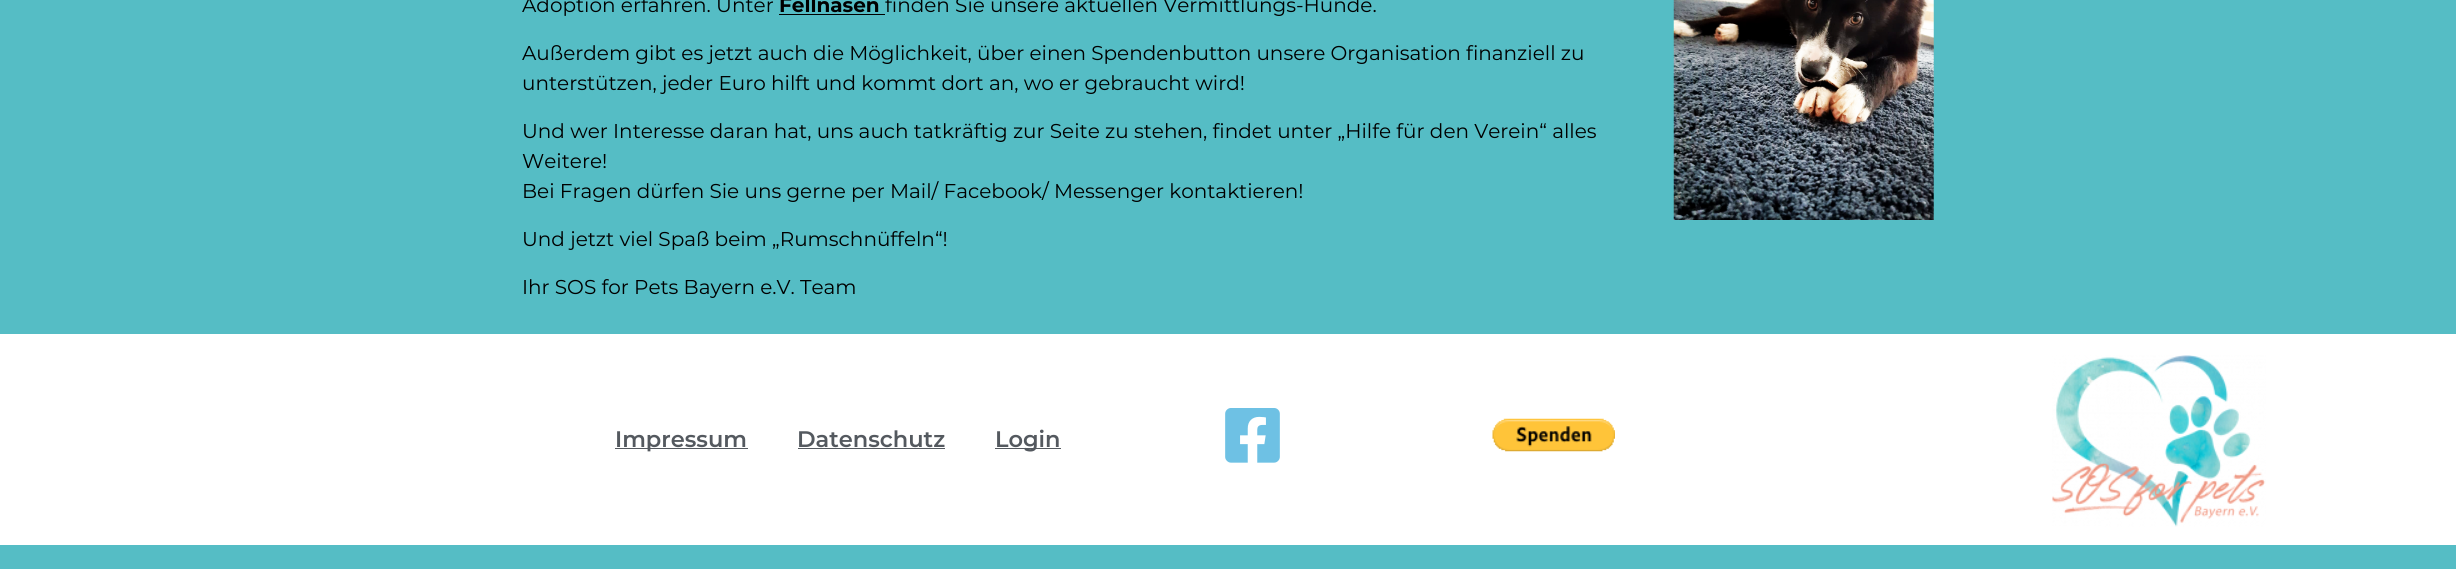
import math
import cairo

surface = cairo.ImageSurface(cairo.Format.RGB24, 2456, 569)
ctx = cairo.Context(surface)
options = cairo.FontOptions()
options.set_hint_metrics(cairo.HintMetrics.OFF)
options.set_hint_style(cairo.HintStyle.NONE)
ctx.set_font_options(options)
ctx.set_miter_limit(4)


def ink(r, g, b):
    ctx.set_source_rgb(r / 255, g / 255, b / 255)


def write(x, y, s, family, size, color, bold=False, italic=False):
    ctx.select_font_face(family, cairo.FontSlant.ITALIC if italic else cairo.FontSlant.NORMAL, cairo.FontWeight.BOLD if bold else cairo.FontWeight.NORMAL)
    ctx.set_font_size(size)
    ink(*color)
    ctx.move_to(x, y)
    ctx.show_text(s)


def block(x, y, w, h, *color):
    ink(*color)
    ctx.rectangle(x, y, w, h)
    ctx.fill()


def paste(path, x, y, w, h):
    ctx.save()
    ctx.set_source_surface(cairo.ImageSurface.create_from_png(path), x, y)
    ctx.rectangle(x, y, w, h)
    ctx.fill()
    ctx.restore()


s1 = dict(family="Montserrat", size=20, color=(0, 0, 0))
s2 = dict(family="Montserrat", size=20, color=(0, 0, 0), bold=True)
s3 = dict(family="Montserrat SemiBold", size=22.5, color=(84, 89, 95))

ink(85, 189, 197)
ctx.paint()
write(522, 12, "Adoption erfahren. Unter", **s1)
write(779, 12, "Fellnasen", **s2)
block(779, 14, 106, 1, 0, 0, 0)
write(885, 12, "finden Sie unsere aktuellen Vermittlungs-Hunde.", **s1)
write(522, 60, "Außerdem gibt es jetzt auch die Möglichkeit, über einen Spendenbutton unsere Organisation finanziell zu", **s1)
write(522, 90, "unterstützen, jeder Euro hilft und kommt dort an, wo er gebraucht wird!", **s1)
write(522, 138, "Und wer Interesse daran hat, uns auch tatkräftig zur Seite zu stehen, findet unter „Hilfe für den Verein“ alles", **s1)
write(522, 168, "Weitere!", **s1)
write(522, 198, "Bei Fragen dürfen Sie uns gerne per Mail/ Facebook/ Messenger kontaktieren!", **s1)
write(522, 246, "Und jetzt viel Spaß beim „Rumschnüffeln“!", **s1)
write(522, 294, "Ihr SOS for Pets Bayern e.V. Team", **s1)
paste("pic1.png", 1673, 0, 261, 220)
block(0, 334, 2456, 211, 255, 255, 255)
block(615, 448, 133, 1, 84, 89, 95)
write(615, 447, "Impressum", **s3)
write(797, 447, "Datenschutz", **s3)
block(798, 448, 147, 1, 84, 89, 95)
block(995, 448, 66, 1, 84, 89, 95)
write(995, 447, "Login", **s3)
paste("pic2.png", 1225, 408, 55, 55)
paste("pic3.png", 1492, 418, 123, 34)
paste("pic4.png", 2052, 355, 214, 172)
surface.write_to_png("screenshot.png")
